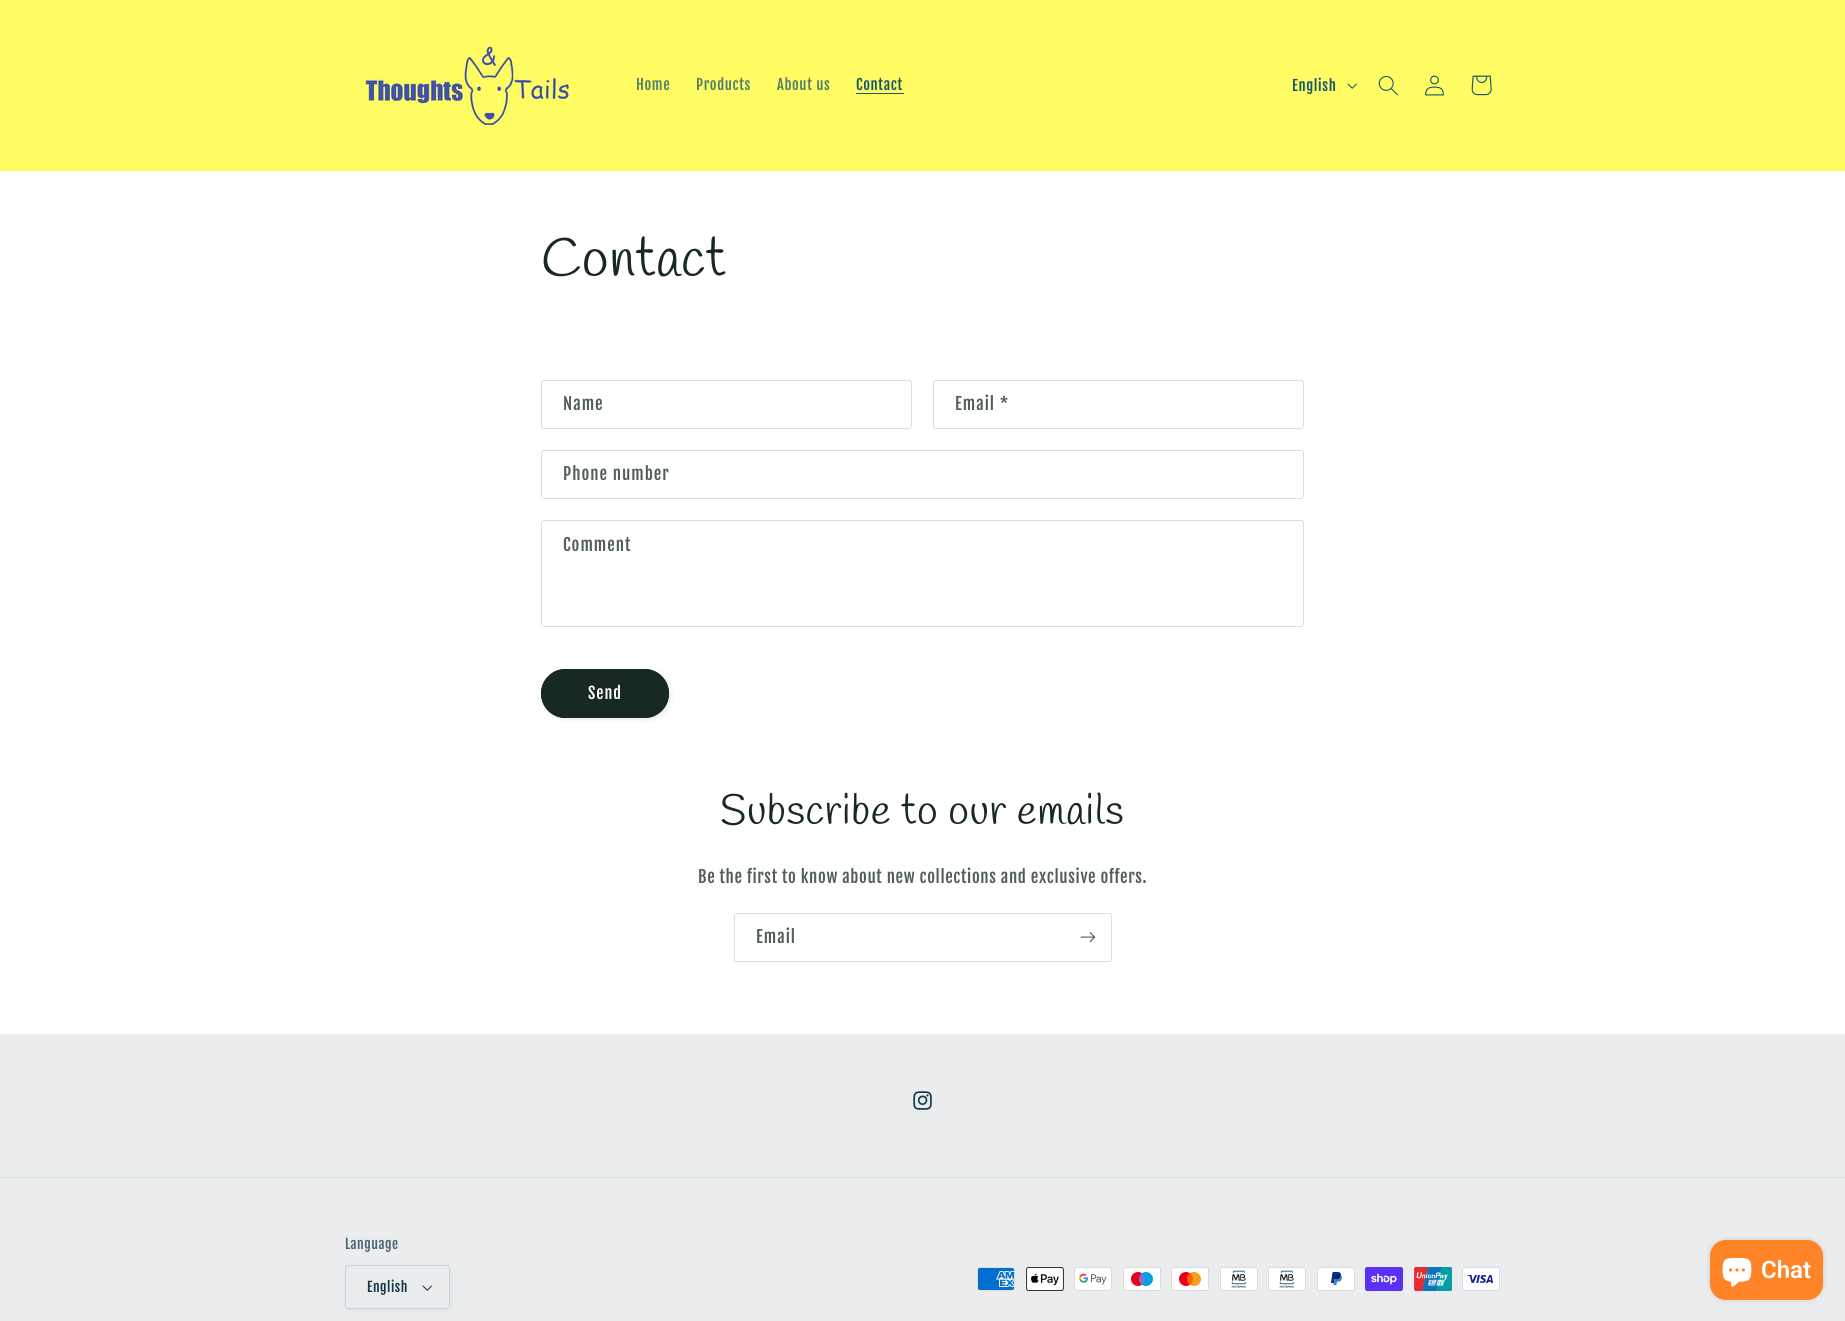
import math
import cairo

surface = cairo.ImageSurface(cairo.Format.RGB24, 1845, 1321)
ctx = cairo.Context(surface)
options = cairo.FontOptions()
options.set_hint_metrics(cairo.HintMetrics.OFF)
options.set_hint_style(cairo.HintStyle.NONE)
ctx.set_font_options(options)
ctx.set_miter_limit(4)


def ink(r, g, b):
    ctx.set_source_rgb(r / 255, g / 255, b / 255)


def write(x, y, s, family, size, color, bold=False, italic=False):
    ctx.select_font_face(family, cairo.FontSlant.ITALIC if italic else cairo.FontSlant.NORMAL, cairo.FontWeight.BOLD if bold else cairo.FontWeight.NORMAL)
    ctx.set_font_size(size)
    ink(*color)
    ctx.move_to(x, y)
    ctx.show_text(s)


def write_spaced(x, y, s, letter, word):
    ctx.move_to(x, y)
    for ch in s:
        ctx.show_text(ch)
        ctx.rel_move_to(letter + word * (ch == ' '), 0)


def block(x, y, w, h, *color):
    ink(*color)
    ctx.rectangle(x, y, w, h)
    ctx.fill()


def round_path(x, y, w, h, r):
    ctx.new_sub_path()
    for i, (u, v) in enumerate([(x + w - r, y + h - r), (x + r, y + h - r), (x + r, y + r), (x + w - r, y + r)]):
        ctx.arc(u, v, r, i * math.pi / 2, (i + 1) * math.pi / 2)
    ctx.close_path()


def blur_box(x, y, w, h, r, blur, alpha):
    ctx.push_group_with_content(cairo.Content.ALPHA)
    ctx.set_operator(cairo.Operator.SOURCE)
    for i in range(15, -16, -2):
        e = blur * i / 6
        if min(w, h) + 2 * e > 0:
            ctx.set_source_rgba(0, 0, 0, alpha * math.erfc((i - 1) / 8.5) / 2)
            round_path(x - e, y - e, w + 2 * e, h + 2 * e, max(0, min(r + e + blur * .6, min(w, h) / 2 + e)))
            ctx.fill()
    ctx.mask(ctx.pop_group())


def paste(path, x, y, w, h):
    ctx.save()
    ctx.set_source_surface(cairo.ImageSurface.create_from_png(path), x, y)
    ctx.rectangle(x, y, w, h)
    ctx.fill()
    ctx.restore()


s1 = dict(family="Roboto SemiBold", size=24, color=(252, 252, 252))

ink(255, 255, 255)
ctx.paint()
block(0, 0, 1845, 171, 255, 253, 99)
paste("pic1.png", 361, 44, 215, 86)
ctx.select_font_face("Fjalla One")
ctx.set_font_size(14.5)
ink(82, 128, 106)
write_spaced(636, 90, "Home", 0.63, 0)
write_spaced(696, 90, "Products", 0.63, 0)
write_spaced(777, 90, "About us", 0.63, 0)
ink(24, 86, 108)
write_spaced(856, 90, "Contact", 0.63, 0)
block(856, 93, 48, 1, 24, 86, 108)
write_spaced(1292, 91, "English", 0.63, 0)
paste("pic2.png", 1347, 83, 10, 6)
paste("pic3.png", 1378, 75, 20, 21)
paste("pic4.png", 1425, 75, 19, 21)
paste("pic5.png", 1471, 75, 21, 21)
ctx.select_font_face("Handlee")
ctx.set_font_size(54.5)
ink(24, 40, 37)
write_spaced(541, 276, "Contact", 0.63, 0)
round_path(541.5, 380.5, 370, 48, 2.5)
ctx.set_source_rgba(0.094, 0.157, 0.145, 0.15)
ctx.set_line_width(1)
ctx.stroke()
ctx.select_font_face("Fjalla One")
ctx.set_font_size(16.8)
ink(82, 94, 92)
write_spaced(563, 410, "Name", 1, 0)
round_path(933.5, 380.5, 370, 48, 2.5)
ctx.set_source_rgba(0.094, 0.157, 0.145, 0.15)
ctx.stroke()
ink(82, 94, 92)
write_spaced(955, 410, "Email *", 1, 0)
round_path(541.5, 450.5, 762, 48, 2.5)
ctx.set_source_rgba(0.094, 0.157, 0.145, 0.15)
ctx.stroke()
ink(82, 94, 92)
write_spaced(563, 480, "Phone number", 1, 0)
round_path(541.5, 520.5, 762, 106, 2.5)
ctx.set_source_rgba(0.094, 0.157, 0.145, 0.15)
ctx.stroke()
ink(82, 94, 92)
write_spaced(563, 551, "Comment", 1, 0)
ink(24, 40, 37)
blur_box(543, 671, 128, 49, 24.5, 2.5, 0.1)
ink(24, 40, 37)
round_path(541, 669, 128, 49, 24.5)
ctx.fill()
round_path(541.5, 669.5, 127, 48, 24)
ctx.stroke()
ctx.set_font_size(16)
ink(252, 252, 252)
write_spaced(588, 699, "Send", 1, 0)
ctx.select_font_face("Handlee")
ctx.set_font_size(42)
ink(24, 40, 37)
write_spaced(720, 824, "Subscribe to our emails", 0.63, 0)
ctx.select_font_face("Fjalla One")
ctx.set_font_size(16.8)
ink(82, 94, 92)
write_spaced(698, 883, "Be the first to know about new collections and exclusive offers.", 0.63, 0)
round_path(734.5, 913.5, 377, 48, 2.5)
ctx.set_source_rgba(0.094, 0.157, 0.145, 0.15)
ctx.stroke()
ink(82, 94, 92)
write_spaced(756, 943, "Email", 1, 0)
paste("pic6.png", 1080, 932, 15, 11)
block(0, 1034, 1845, 287, 235, 236, 237)
paste("pic7.png", 913, 1091, 19, 19)
block(0, 1177, 1845, 1, 217, 222, 224)
ctx.set_font_size(13.5)
ink(71, 102, 113)
write_spaced(345, 1249, "Language", 0.5, 0)
ink(16, 57, 72)
blur_box(347, 1267, 105, 44, 3, 2.5, 0.05)
ink(235, 236, 237)
round_path(345, 1265, 105, 44, 3)
ctx.fill()
paste("pic8.png", 422, 1285, 10, 6)
round_path(345.5, 1265.5, 104, 43, 2.5)
ink(202, 209, 212)
ctx.stroke()
ink(16, 57, 72)
write_spaced(367, 1292, "English", 0.5, 0)
paste("pic9.png", 977, 1267, 38, 24)
paste("pic10.png", 1026, 1267, 38, 24)
paste("pic11.png", 1074, 1267, 38, 24)
paste("pic12.png", 1123, 1267, 38, 24)
paste("pic13.png", 1171, 1267, 38, 24)
paste("pic14.png", 1220, 1267, 38, 24)
paste("pic14.png", 1268, 1267, 38, 24)
paste("pic15.png", 1317, 1267, 38, 24)
paste("pic16.png", 1365, 1267, 38, 24)
paste("pic17.png", 1414, 1267, 38, 24)
paste("pic18.png", 1462, 1267, 38, 24)
ink(0, 0, 0)
blur_box(1710, 1240, 113, 60, 16, 2.5, 0.15)
ink(255, 132, 39)
round_path(1710, 1240, 113, 60, 16)
ctx.fill()
paste("pic19.png", 1722, 1258, 30, 29)
write(1761, 1278, "Chat", **s1)
surface.write_to_png("screenshot.png")
